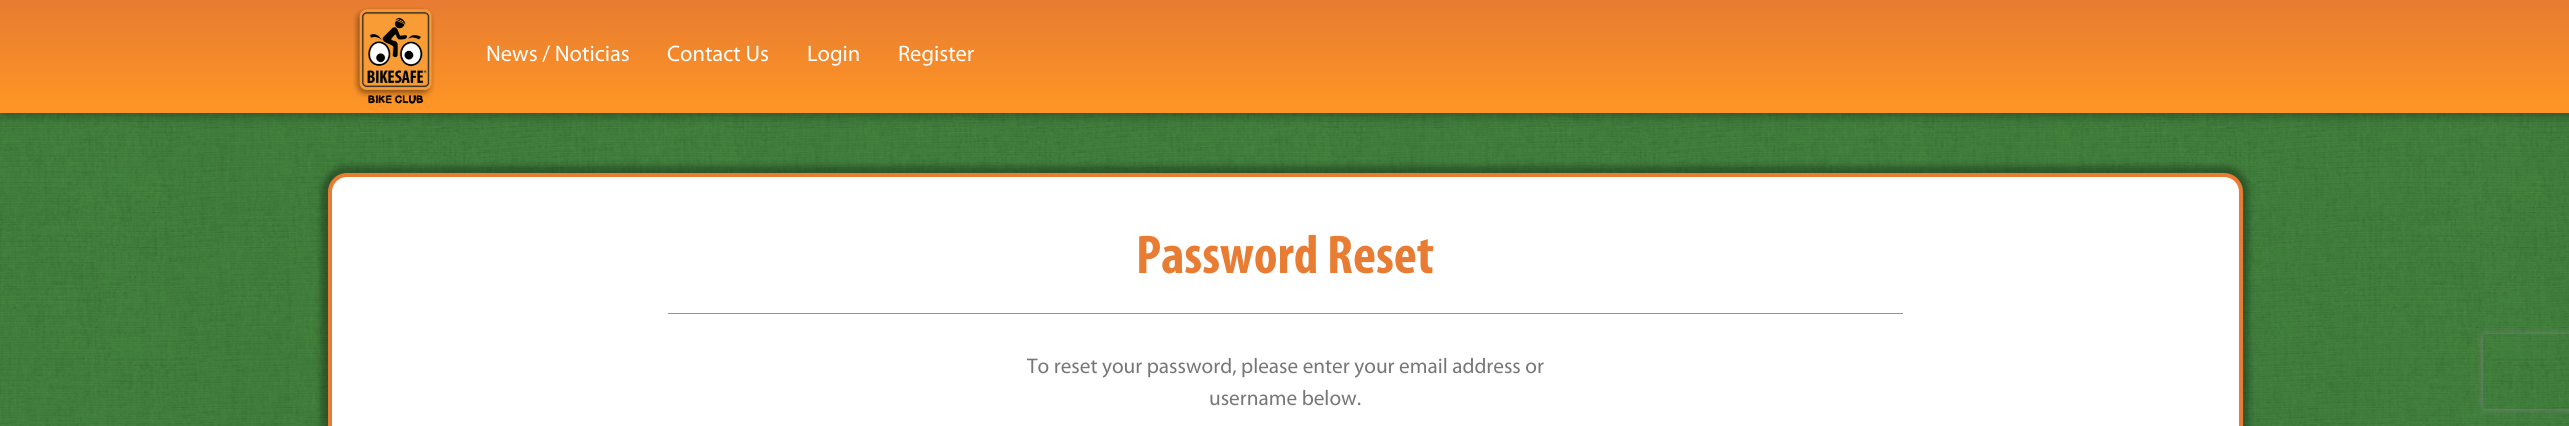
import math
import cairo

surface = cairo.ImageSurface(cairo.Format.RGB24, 2569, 426)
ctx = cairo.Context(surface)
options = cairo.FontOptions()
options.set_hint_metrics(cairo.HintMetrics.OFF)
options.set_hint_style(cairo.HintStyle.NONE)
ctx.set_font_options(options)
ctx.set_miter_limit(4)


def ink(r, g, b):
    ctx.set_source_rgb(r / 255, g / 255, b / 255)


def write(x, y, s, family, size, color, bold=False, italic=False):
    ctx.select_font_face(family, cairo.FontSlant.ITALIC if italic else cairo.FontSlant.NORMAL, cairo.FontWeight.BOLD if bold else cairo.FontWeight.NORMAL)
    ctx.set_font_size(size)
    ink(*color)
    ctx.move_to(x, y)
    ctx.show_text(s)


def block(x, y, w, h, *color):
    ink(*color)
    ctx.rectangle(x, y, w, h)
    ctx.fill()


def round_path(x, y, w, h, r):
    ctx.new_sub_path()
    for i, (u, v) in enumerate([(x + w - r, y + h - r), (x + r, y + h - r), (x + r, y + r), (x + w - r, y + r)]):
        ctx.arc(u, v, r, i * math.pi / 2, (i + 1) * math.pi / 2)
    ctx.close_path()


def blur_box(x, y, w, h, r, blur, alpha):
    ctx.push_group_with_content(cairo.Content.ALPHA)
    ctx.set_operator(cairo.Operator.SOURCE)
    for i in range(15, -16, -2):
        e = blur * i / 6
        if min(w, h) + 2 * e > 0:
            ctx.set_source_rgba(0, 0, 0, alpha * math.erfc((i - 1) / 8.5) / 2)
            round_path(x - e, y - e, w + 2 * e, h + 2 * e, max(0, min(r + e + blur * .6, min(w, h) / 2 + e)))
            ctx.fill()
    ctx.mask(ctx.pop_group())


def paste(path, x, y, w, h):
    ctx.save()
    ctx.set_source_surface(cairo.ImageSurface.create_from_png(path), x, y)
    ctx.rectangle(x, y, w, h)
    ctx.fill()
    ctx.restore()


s1 = dict(family="Myriad", size=22.5, color=(255, 255, 255))
s2 = dict(family="Myriad", size=55, color=(231, 124, 50), bold=True)
s3 = dict(family="Myriad", size=21.25, color=(119, 119, 119))

ink(255, 255, 255)
ctx.paint()
paste("pic1.png", 0, 113, 2569, 313)
ink(0, 0, 0)
blur_box(3, 3, 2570, 112, 0, 6, 0.38)
gradient = cairo.LinearGradient(1285, 0, 1285, 113)
gradient.add_color_stop_rgba(0, 0.906, 0.486, 0.196, 1)
gradient.add_color_stop_rgba(1, 1, 0.588, 0.141, 1)
ctx.set_source(gradient)
ctx.rectangle(0, 0, 2569, 113)
ctx.fill()
paste("pic2.png", 353, 7, 82, 97)
write(486, 61, "News / Noticias", **s1)
write(667, 61, "Contact Us", **s1)
write(807, 61, "Login", **s1)
write(898, 61, "Register", **s1)
ink(0, 0, 0)
blur_box(321, 166, 1928, 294, 25, 3, 0.3)
ink(255, 255, 255)
round_path(330, 175, 1911, 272, 17)
ctx.fill_preserve()
ink(231, 124, 50)
ctx.set_line_width(4)
ctx.stroke()
write(1136, 273, "Password Reset", **s2)
block(668, 313, 1235, 1, 231, 124, 50)
write(1027, 373, "To reset your password, please enter your email address or", **s3)
write(1209, 405, "username below.", **s3)
ctx.save()
ctx.set_fill_rule(cairo.FillRule.EVEN_ODD)
ctx.new_path()
ctx.move_to(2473, 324)
ctx.line_to(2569, 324)
ctx.line_to(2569, 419)
ctx.line_to(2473, 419)
ctx.close_path()
ctx.move_to(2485.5, 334)
ctx.line_to(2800.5, 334)
ctx.curve_to(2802, 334, 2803, 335, 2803, 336.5)
ctx.line_to(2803, 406.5)
ctx.curve_to(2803, 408, 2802, 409, 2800.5, 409)
ctx.line_to(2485.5, 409)
ctx.curve_to(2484, 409, 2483, 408, 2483, 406.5)
ctx.line_to(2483, 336.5)
ctx.curve_to(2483, 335, 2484, 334, 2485.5, 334)
ctx.close_path()
ctx.clip()
ink(128, 128, 128)
blur_box(2483, 334, 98, 75, 2.5, 3, 1)
ctx.restore()
surface.write_to_png("screenshot.png")
